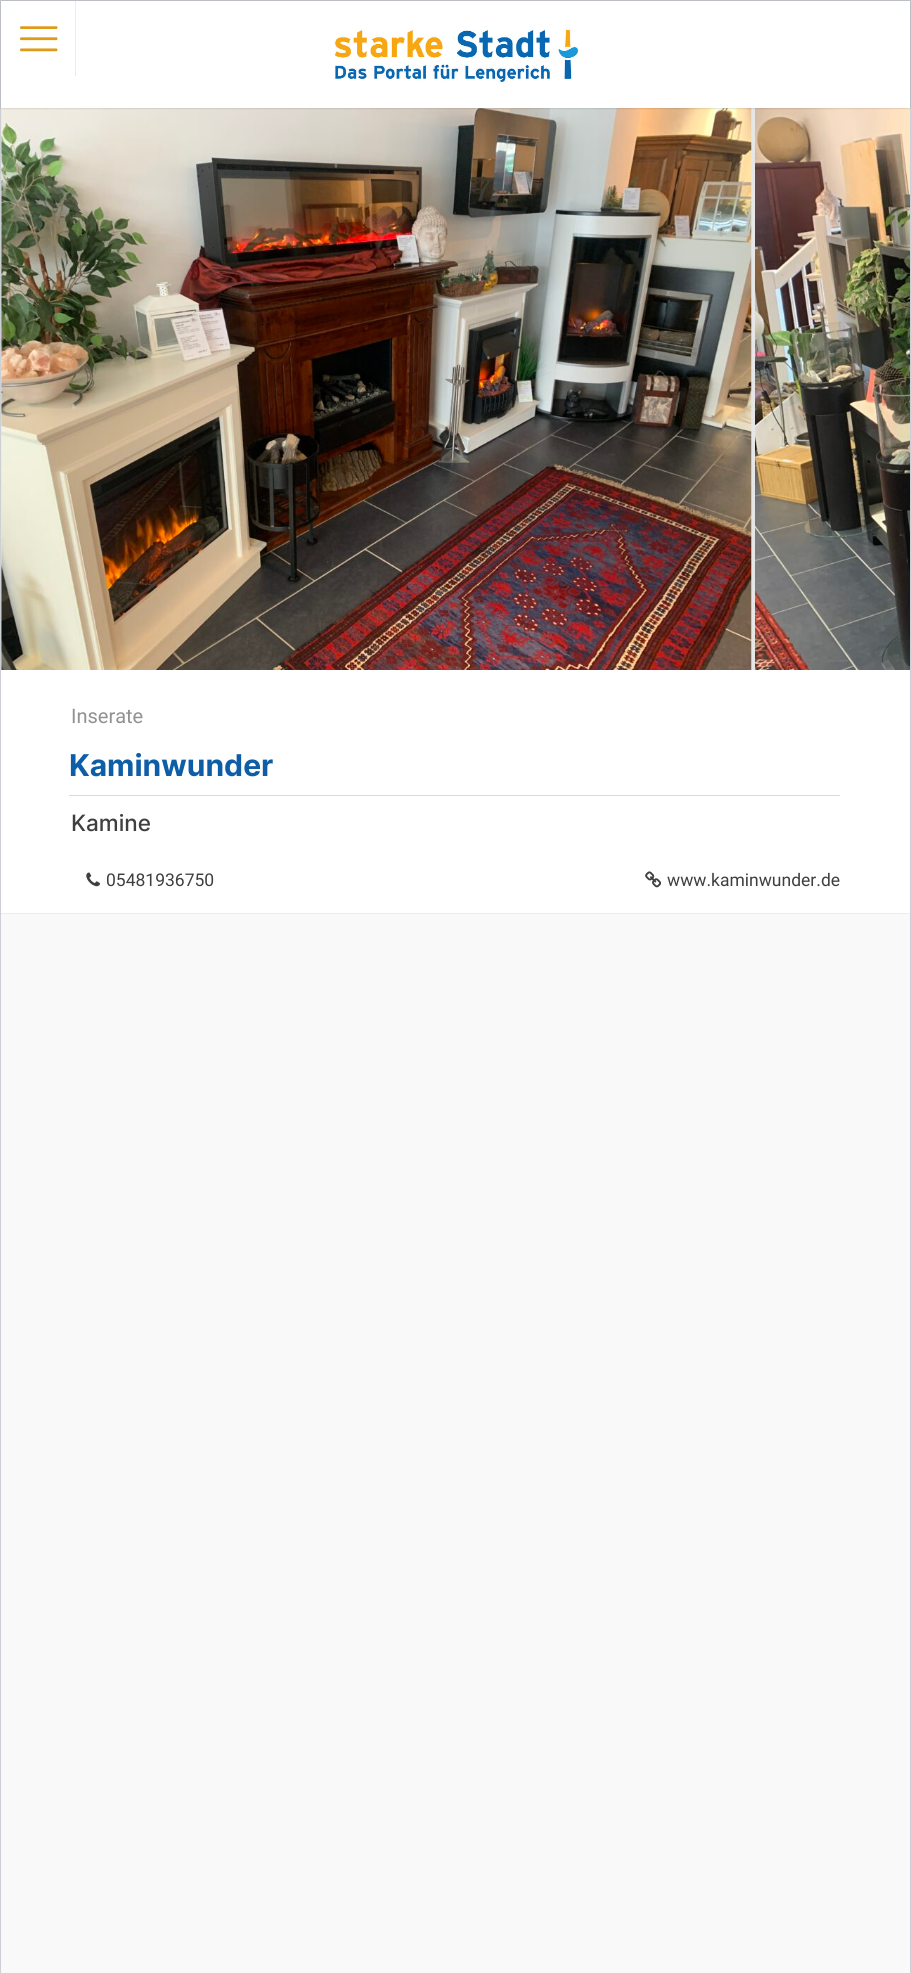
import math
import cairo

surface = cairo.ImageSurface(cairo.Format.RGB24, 911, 1973)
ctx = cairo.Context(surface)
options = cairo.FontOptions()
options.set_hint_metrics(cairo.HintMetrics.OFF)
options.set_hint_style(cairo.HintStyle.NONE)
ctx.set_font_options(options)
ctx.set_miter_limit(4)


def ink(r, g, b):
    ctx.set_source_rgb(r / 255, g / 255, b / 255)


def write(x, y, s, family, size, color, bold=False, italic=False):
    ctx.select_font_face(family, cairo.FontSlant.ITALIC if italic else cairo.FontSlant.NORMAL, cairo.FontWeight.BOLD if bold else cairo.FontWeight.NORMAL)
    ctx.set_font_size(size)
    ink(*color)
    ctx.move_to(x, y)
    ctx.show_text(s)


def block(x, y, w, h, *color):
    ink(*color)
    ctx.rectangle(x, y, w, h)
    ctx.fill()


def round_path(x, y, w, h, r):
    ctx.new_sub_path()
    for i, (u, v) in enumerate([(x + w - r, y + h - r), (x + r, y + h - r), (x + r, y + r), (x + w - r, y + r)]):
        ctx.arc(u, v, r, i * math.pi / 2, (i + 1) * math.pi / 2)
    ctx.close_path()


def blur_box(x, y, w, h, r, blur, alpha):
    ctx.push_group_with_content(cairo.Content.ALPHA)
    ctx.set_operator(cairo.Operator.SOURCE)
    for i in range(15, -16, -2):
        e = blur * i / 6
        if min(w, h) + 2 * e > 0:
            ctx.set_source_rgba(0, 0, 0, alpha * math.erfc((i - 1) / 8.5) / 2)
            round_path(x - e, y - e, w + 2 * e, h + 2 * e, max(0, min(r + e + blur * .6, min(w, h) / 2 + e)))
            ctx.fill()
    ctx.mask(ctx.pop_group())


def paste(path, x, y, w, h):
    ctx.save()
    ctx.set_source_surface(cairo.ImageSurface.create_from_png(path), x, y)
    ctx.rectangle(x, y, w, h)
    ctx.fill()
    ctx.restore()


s1 = dict(family="Roboto", size=20, color=(145, 145, 145))
s2 = dict(family="Inter", size=30, color=(14, 93, 167), bold=True)
s3 = dict(family="Inter Medium", size=22.5, color=(63, 63, 63))
s4 = dict(family="Roboto", size=17.5, color=(63, 63, 63))

ink(249, 249, 249)
ctx.paint()
ctx.rectangle(0.5, 0.5, 910, 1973)
ink(204, 208, 212)
ctx.set_line_width(1)
ctx.stroke()
block(1, 108, 754, 562, 230, 230, 230)
paste("pic3.png", 1, 108, 751, 562)
paste("pic4.png", 755, 108, 155, 562)
ink(0, 0, 0)
blur_box(1, 1, 909, 107, 0, 1, 0.25)
block(1, 1, 909, 107, 255, 255, 255)
block(75, 1, 1, 75, 236, 236, 236)
paste("pic1.png", 20, 26, 38, 26)
paste("pic2.png", 334, 28, 245, 55)
block(1, 670, 909, 243, 255, 255, 255)
block(1, 913, 909, 1, 236, 236, 236)
write(71, 723, "Inserate", **s1)
block(69, 795, 771, 1, 218, 218, 218)
write(69, 776, "Kaminwunder", **s2)
write(71, 831, "Kamine", **s3)
paste("pic5.png", 86, 872, 14, 15)
write(106, 886, "05481936750", **s4)
paste("pic6.png", 645, 871, 17, 17)
write(667, 886, "www.kaminwunder.de", **s4)
surface.write_to_png("screenshot.png")
